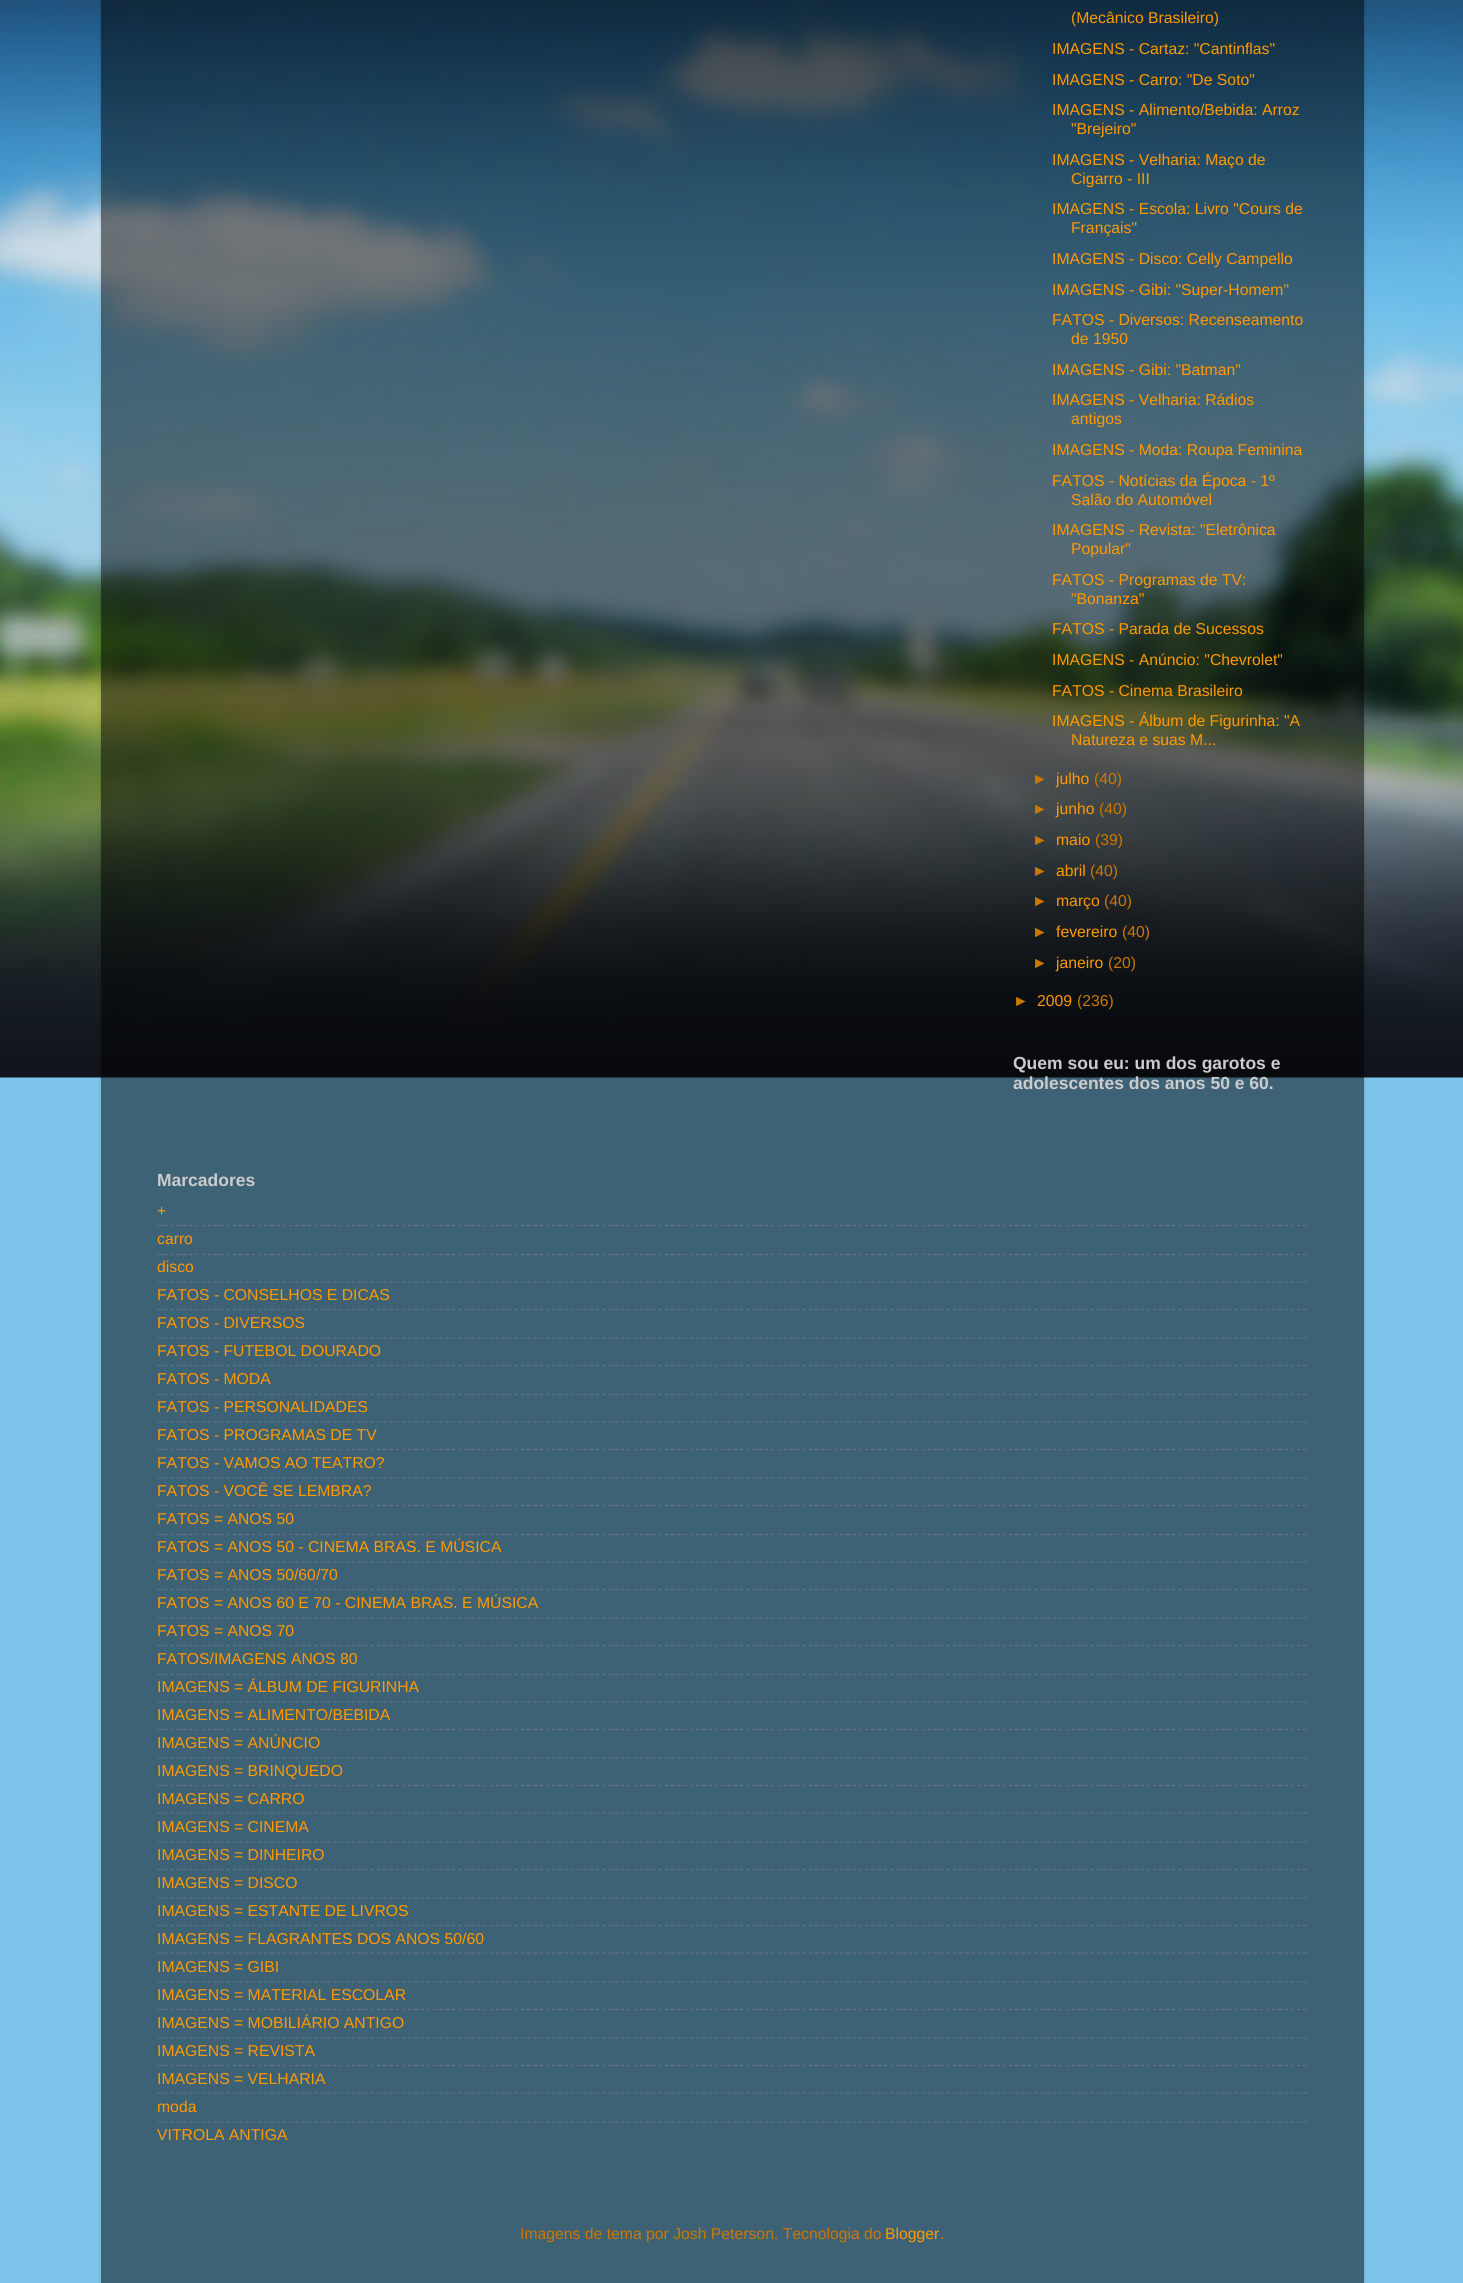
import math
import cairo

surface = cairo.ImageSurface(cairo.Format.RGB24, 1463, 2283)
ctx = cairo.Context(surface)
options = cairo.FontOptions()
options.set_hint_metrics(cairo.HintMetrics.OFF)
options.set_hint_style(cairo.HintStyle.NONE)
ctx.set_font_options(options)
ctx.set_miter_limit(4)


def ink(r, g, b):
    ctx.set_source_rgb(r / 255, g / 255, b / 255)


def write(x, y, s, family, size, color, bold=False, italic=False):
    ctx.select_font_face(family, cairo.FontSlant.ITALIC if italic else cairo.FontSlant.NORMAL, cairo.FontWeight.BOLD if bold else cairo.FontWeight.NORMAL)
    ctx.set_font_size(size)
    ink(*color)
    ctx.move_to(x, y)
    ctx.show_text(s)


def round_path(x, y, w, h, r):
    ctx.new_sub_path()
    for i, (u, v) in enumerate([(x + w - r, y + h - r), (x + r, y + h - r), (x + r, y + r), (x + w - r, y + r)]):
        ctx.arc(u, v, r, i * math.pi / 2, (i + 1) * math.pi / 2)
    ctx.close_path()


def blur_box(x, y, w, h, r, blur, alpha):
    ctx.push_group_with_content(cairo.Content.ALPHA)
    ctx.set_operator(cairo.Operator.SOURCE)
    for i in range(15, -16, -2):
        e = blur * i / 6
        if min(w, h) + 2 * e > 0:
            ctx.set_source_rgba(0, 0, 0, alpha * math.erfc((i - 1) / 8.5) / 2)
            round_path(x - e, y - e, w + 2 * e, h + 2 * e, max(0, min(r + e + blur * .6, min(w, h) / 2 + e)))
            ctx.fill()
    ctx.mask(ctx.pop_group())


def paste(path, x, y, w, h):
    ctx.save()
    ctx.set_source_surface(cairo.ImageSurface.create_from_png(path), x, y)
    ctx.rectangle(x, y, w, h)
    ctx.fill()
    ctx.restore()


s1 = dict(family="Liberation Sans", size=15.75, color=(255, 153, 0))
s2 = dict(family="Liberation Sans", size=15.75, color=(204, 119, 0))
s3 = dict(family="Liberation Sans", size=17.5, color=(204, 204, 204), bold=True)

ink(124, 196, 234)
ctx.paint()
paste("pic1.png", 0, 0, 1463, 1078)
ctx.save()
ctx.set_fill_rule(cairo.FillRule.EVEN_ODD)
ctx.new_path()
ctx.move_to(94, 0)
ctx.line_to(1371, 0)
ctx.line_to(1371, 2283)
ctx.line_to(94, 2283)
ctx.close_path()
ctx.move_to(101, -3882)
ctx.line_to(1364, -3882)
ctx.line_to(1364, 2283)
ctx.line_to(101, 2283)
ctx.close_path()
ctx.clip()
ink(0, 0, 0)
blur_box(101, -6, 1263, 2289, 0, 2, 0.15)
ctx.restore()
ctx.set_source_rgba(0, 0, 0, 0.5)
ctx.rectangle(101, 0, 1263, 2283)
ctx.fill()
write(1071, 23, "(Mecânico Brasileiro)", **s1)
write(1052, 54, "IMAGENS - Cartaz: \"Cantinflas\"", **s1)
write(1052, 85, "IMAGENS - Carro: \"De Soto\"", **s1)
write(1052, 115, "IMAGENS - Alimento/Bebida: Arroz", **s1)
write(1071, 134, "\"Brejeiro\"", **s1)
write(1052, 165, "IMAGENS - Velharia: Maço de", **s1)
write(1071, 184, "Cigarro - III", **s1)
write(1052, 214, "IMAGENS - Escola: Livro \"Cours de", **s1)
write(1071, 233, "Français\"", **s1)
write(1052, 264, "IMAGENS - Disco: Celly Campello", **s1)
write(1052, 295, "IMAGENS - Gibi: \"Super-Homem\"", **s1)
write(1052, 325, "FATOS - Diversos: Recenseamento", **s1)
write(1071, 344, "de 1950", **s1)
write(1052, 375, "IMAGENS - Gibi: \"Batman\"", **s1)
write(1052, 405, "IMAGENS - Velharia: Rádios", **s1)
write(1071, 424, "antigos", **s1)
write(1052, 455, "IMAGENS - Moda: Roupa Feminina", **s1)
write(1052, 486, "FATOS - Notícias da Época - 1º", **s1)
write(1071, 505, "Salão do Automóvel", **s1)
write(1052, 535, "IMAGENS - Revista: \"Eletrônica", **s1)
write(1071, 554, "Popular\"", **s1)
write(1052, 585, "FATOS - Programas de TV:", **s1)
write(1071, 604, "\"Bonanza\"", **s1)
write(1052, 634, "FATOS - Parada de Sucessos", **s1)
write(1052, 665, "IMAGENS - Anúncio: \"Chevrolet\"", **s1)
write(1052, 696, "FATOS - Cinema Brasileiro", **s1)
write(1052, 726, "IMAGENS - Álbum de Figurinha: \"A", **s1)
write(1071, 745, "Natureza e suas M...", **s1)
write(1032, 784, "►", **s2)
write(1056, 784, "julho", **s1)
write(1094, 784, "(40)", **s2)
write(1032, 814, "►", **s2)
write(1056, 814, "junho", **s1)
write(1099, 814, "(40)", **s2)
write(1032, 845, "►", **s2)
write(1056, 845, "maio", **s1)
write(1095, 845, "(39)", **s2)
write(1032, 876, "►", **s2)
write(1056, 876, "abril", **s1)
write(1090, 876, "(40)", **s2)
write(1032, 906, "►", **s2)
write(1056, 906, "março", **s1)
write(1104, 906, "(40)", **s2)
write(1032, 937, "►", **s2)
write(1056, 937, "fevereiro", **s1)
write(1122, 937, "(40)", **s2)
write(1032, 968, "►", **s2)
write(1056, 968, "janeiro", **s1)
write(1108, 968, "(20)", **s2)
write(1013, 1006, "►", **s2)
write(1037, 1006, "2009", **s1)
write(1077, 1006, "(236)", **s2)
write(1013, 1069, "Quem sou eu: um dos garotos e", **s3)
write(1013, 1089, "adolescentes dos anos 50 e 60.", **s3)
write(157, 1186, "Marcadores", **s3)
write(157, 1216, "+", **s1)
ctx.new_path()
ctx.move_to(157.5, 1225.5)
ctx.line_to(1307.5, 1225.5)
ink(95, 113, 123)
ctx.set_line_width(1.2)
ctx.set_dash([3.75, 2.51])
ctx.stroke()
write(157, 1244, "carro", **s1)
ctx.new_path()
ctx.move_to(157.5, 1254.5)
ctx.line_to(1307.5, 1254.5)
ink(95, 113, 123)
ctx.stroke()
write(157, 1272, "disco", **s1)
ctx.new_path()
ctx.move_to(157.5, 1282)
ctx.line_to(1307.5, 1282)
ink(95, 113, 123)
ctx.stroke()
write(157, 1300, "FATOS - CONSELHOS E DICAS", **s1)
ctx.new_path()
ctx.move_to(157.5, 1309.5)
ctx.line_to(1307.5, 1309.5)
ink(95, 113, 123)
ctx.stroke()
write(157, 1328, "FATOS - DIVERSOS", **s1)
ctx.new_path()
ctx.move_to(157.5, 1338)
ctx.line_to(1307.5, 1338)
ink(95, 113, 123)
ctx.stroke()
write(157, 1356, "FATOS - FUTEBOL DOURADO", **s1)
ctx.new_path()
ctx.move_to(157.5, 1365.5)
ctx.line_to(1307.5, 1365.5)
ink(95, 113, 123)
ctx.stroke()
write(157, 1384, "FATOS - MODA", **s1)
ctx.new_path()
ctx.move_to(157.5, 1394.5)
ctx.line_to(1307.5, 1394.5)
ink(95, 113, 123)
ctx.stroke()
write(157, 1412, "FATOS - PERSONALIDADES", **s1)
ctx.new_path()
ctx.move_to(157.5, 1422)
ctx.line_to(1307.5, 1422)
ink(95, 113, 123)
ctx.stroke()
write(157, 1440, "FATOS - PROGRAMAS DE TV", **s1)
ctx.new_path()
ctx.move_to(157.5, 1449.5)
ctx.line_to(1307.5, 1449.5)
ink(95, 113, 123)
ctx.stroke()
write(157, 1468, "FATOS - VAMOS AO TEATRO?", **s1)
ctx.new_path()
ctx.move_to(157.5, 1478)
ctx.line_to(1307.5, 1478)
ink(95, 113, 123)
ctx.stroke()
write(157, 1496, "FATOS - VOCÊ SE LEMBRA?", **s1)
ctx.new_path()
ctx.move_to(157.5, 1505.5)
ctx.line_to(1307.5, 1505.5)
ink(95, 113, 123)
ctx.stroke()
write(157, 1524, "FATOS = ANOS 50", **s1)
ctx.new_path()
ctx.move_to(157.5, 1534.5)
ctx.line_to(1307.5, 1534.5)
ink(95, 113, 123)
ctx.stroke()
write(157, 1552, "FATOS = ANOS 50 - CINEMA BRAS. E MÚSICA", **s1)
ctx.new_path()
ctx.move_to(157.5, 1562)
ctx.line_to(1307.5, 1562)
ink(95, 113, 123)
ctx.stroke()
write(157, 1580, "FATOS = ANOS 50/60/70", **s1)
ctx.new_path()
ctx.move_to(157.5, 1589.5)
ctx.line_to(1307.5, 1589.5)
ink(95, 113, 123)
ctx.stroke()
write(157, 1608, "FATOS = ANOS 60 E 70 - CINEMA BRAS. E MÚSICA", **s1)
ctx.new_path()
ctx.move_to(157.5, 1618)
ctx.line_to(1307.5, 1618)
ink(95, 113, 123)
ctx.stroke()
write(157, 1636, "FATOS = ANOS 70", **s1)
ctx.new_path()
ctx.move_to(157.5, 1645.5)
ctx.line_to(1307.5, 1645.5)
ink(95, 113, 123)
ctx.stroke()
write(157, 1664, "FATOS/IMAGENS ANOS 80", **s1)
ctx.new_path()
ctx.move_to(157.5, 1674.5)
ctx.line_to(1307.5, 1674.5)
ink(95, 113, 123)
ctx.stroke()
write(157, 1692, "IMAGENS = ÁLBUM DE FIGURINHA", **s1)
ctx.new_path()
ctx.move_to(157.5, 1702)
ctx.line_to(1307.5, 1702)
ink(95, 113, 123)
ctx.stroke()
write(157, 1720, "IMAGENS = ALIMENTO/BEBIDA", **s1)
ctx.new_path()
ctx.move_to(157.5, 1729.5)
ctx.line_to(1307.5, 1729.5)
ink(95, 113, 123)
ctx.stroke()
write(157, 1748, "IMAGENS = ANÚNCIO", **s1)
ctx.new_path()
ctx.move_to(157.5, 1758)
ctx.line_to(1307.5, 1758)
ink(95, 113, 123)
ctx.stroke()
write(157, 1776, "IMAGENS = BRINQUEDO", **s1)
ctx.new_path()
ctx.move_to(157.5, 1785.5)
ctx.line_to(1307.5, 1785.5)
ink(95, 113, 123)
ctx.stroke()
write(157, 1804, "IMAGENS = CARRO", **s1)
ctx.new_path()
ctx.move_to(157.5, 1813)
ctx.line_to(1307.5, 1813)
ink(95, 113, 123)
ctx.stroke()
write(157, 1832, "IMAGENS = CINEMA", **s1)
ctx.new_path()
ctx.move_to(157.5, 1842)
ctx.line_to(1307.5, 1842)
ink(95, 113, 123)
ctx.stroke()
write(157, 1860, "IMAGENS = DINHEIRO", **s1)
ctx.new_path()
ctx.move_to(157.5, 1869.5)
ctx.line_to(1307.5, 1869.5)
ink(95, 113, 123)
ctx.stroke()
write(157, 1888, "IMAGENS = DISCO", **s1)
ctx.new_path()
ctx.move_to(157.5, 1898)
ctx.line_to(1307.5, 1898)
ink(95, 113, 123)
ctx.stroke()
write(157, 1916, "IMAGENS = ESTANTE DE LIVROS", **s1)
ctx.new_path()
ctx.move_to(157.5, 1925.5)
ctx.line_to(1307.5, 1925.5)
ink(95, 113, 123)
ctx.stroke()
write(157, 1944, "IMAGENS = FLAGRANTES DOS ANOS 50/60", **s1)
ctx.new_path()
ctx.move_to(157.5, 1953)
ctx.line_to(1307.5, 1953)
ink(95, 113, 123)
ctx.stroke()
write(157, 1972, "IMAGENS = GIBI", **s1)
ctx.new_path()
ctx.move_to(157.5, 1982)
ctx.line_to(1307.5, 1982)
ink(95, 113, 123)
ctx.stroke()
write(157, 2000, "IMAGENS = MATERIAL ESCOLAR", **s1)
ctx.new_path()
ctx.move_to(157.5, 2009.5)
ctx.line_to(1307.5, 2009.5)
ink(95, 113, 123)
ctx.stroke()
write(157, 2028, "IMAGENS = MOBILIÁRIO ANTIGO", **s1)
ctx.new_path()
ctx.move_to(157.5, 2038)
ctx.line_to(1307.5, 2038)
ink(95, 113, 123)
ctx.stroke()
write(157, 2056, "IMAGENS = REVISTA", **s1)
ctx.new_path()
ctx.move_to(157.5, 2065.5)
ctx.line_to(1307.5, 2065.5)
ink(95, 113, 123)
ctx.stroke()
write(157, 2084, "IMAGENS = VELHARIA", **s1)
ctx.new_path()
ctx.move_to(157.5, 2093)
ctx.line_to(1307.5, 2093)
ink(95, 113, 123)
ctx.stroke()
write(157, 2112, "moda", **s1)
ctx.new_path()
ctx.move_to(157.5, 2122)
ctx.line_to(1307.5, 2122)
ink(95, 113, 123)
ctx.stroke()
write(157, 2140, "VITROLA ANTIGA", **s1)
write(520, 2239, "Imagens de tema por Josh Peterson. Tecnologia do", **s2)
write(885, 2239, "Blogger", **s1)
write(940, 2239, ".", **s2)
surface.write_to_png("screenshot.png")
